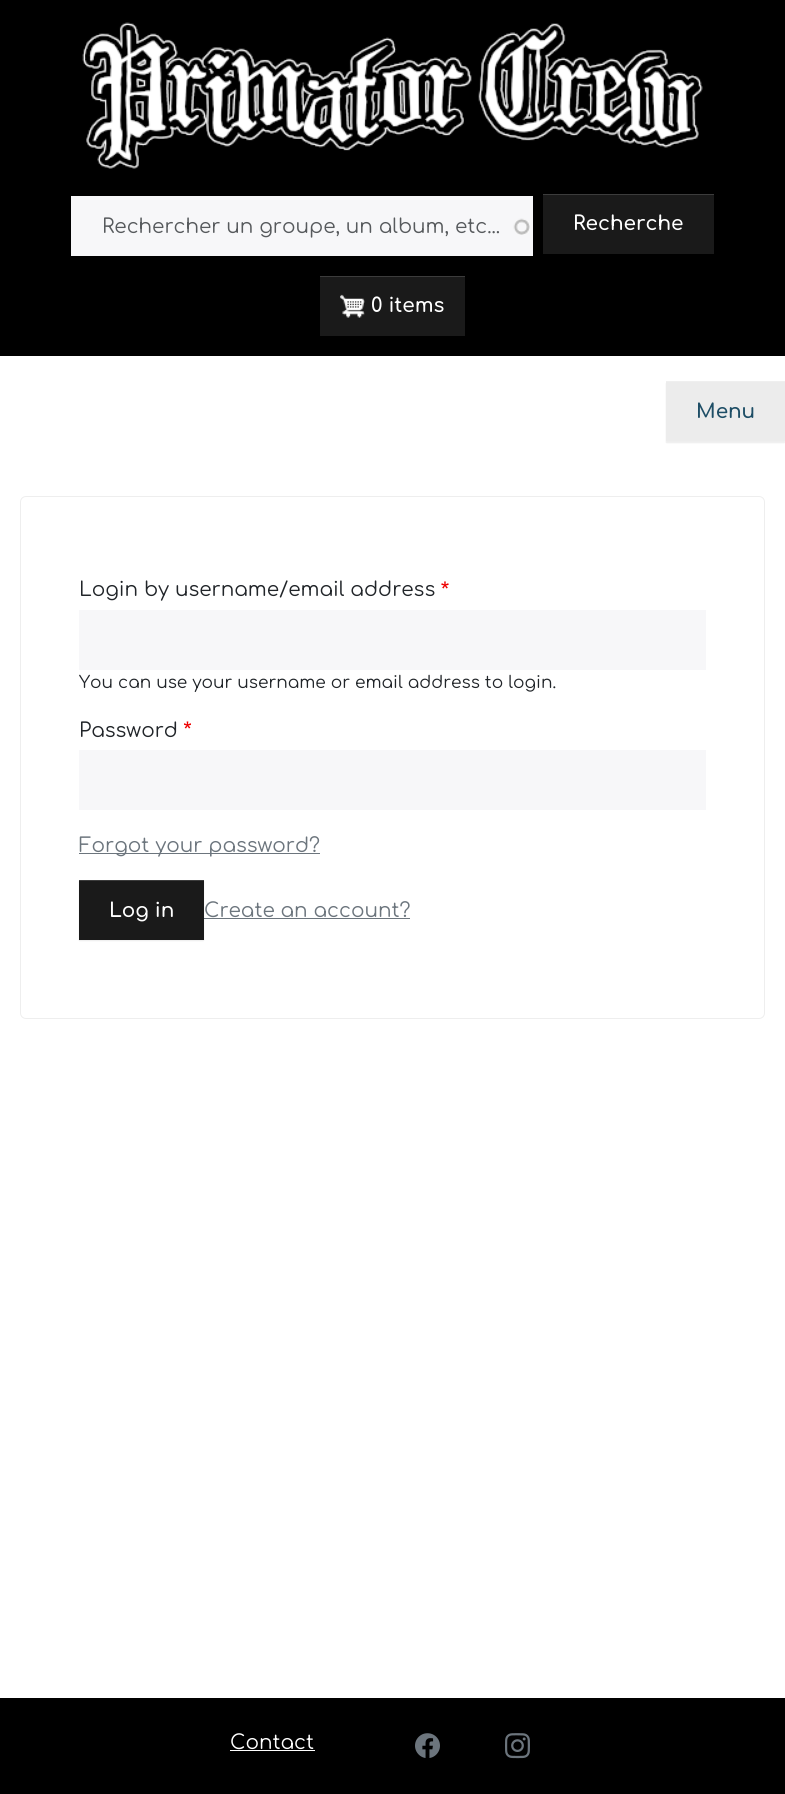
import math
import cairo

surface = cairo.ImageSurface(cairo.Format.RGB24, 785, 1794)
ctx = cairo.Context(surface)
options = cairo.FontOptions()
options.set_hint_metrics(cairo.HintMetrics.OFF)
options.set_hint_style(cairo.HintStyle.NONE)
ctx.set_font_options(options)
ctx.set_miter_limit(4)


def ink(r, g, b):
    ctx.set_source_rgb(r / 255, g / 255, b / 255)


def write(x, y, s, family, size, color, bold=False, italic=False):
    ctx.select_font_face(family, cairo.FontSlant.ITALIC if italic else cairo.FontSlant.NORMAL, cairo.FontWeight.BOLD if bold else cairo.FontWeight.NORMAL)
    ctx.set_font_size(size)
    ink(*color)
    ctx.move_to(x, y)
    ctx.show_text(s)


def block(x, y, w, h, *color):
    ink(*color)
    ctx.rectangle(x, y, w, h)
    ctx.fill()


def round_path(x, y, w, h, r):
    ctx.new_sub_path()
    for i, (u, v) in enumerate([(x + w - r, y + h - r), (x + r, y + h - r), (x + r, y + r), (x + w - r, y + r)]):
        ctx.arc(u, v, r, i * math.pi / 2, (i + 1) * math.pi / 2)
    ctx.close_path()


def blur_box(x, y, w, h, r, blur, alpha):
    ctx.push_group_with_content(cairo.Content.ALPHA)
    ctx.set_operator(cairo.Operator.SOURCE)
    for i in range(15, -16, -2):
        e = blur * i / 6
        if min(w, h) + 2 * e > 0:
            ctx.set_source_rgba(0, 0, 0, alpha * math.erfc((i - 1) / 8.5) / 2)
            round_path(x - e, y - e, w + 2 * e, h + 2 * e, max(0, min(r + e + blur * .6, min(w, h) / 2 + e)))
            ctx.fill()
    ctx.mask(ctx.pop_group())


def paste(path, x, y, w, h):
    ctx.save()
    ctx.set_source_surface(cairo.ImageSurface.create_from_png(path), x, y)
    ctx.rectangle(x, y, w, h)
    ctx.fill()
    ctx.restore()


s1 = dict(family="Comfortaa", size=20, color=(87, 90, 93))
s2 = dict(family="Comfortaa SemiBold", size=20, color=(255, 255, 255))
s3 = dict(family="Comfortaa SemiBold", size=20, color=(30, 78, 102))
s4 = dict(family="Comfortaa", size=20, color=(33, 37, 41))
s5 = dict(family="Comfortaa", size=17, color=(33, 37, 41))
s6 = dict(family="Comfortaa", size=20, color=(108, 117, 125))
s7 = dict(family="Comfortaa", size=20, color=(255, 255, 255))

ink(255, 255, 255)
ctx.paint()
block(0, 0, 785, 356, 0, 0, 0)
paste("pic1.png", 82, 22, 621, 147)
block(71, 196, 462, 60, 247, 247, 249)
paste("pic2.png", 513, 218, 17, 17)
write(102, 233, "Rechercher un groupe, un album, etc...", **s1)
block(543, 195, 171, 59, 26, 26, 26)
block(543, 194, 171, 1, 60, 60, 60)
write(573, 230, "Recherche", **s2)
block(320, 277, 145, 59, 26, 26, 26)
block(320, 276, 145, 1, 60, 60, 60)
paste("pic3.png", 340, 294, 25, 24)
write(371, 312, "0 items", **s2)
ink(0, 0, 0)
blur_box(666, 383, 119, 60, 0, 0.5, 0.07)
block(666, 382, 119, 59, 236, 236, 236)
block(666, 381, 119, 1, 239, 239, 239)
write(696, 418, "Menu", **s3)
round_path(20.5, 496.5, 744, 522, 5.5)
ink(238, 238, 238)
ctx.set_line_width(1)
ctx.stroke()
write(79, 596, "Login by username/email address", **s4)
paste("pic4.png", 441, 581, 8, 8)
block(79, 610, 627, 60, 247, 247, 249)
write(79, 688, "You can use your username or email address to login.", **s5)
write(79, 737, "Password", **s4)
paste("pic5.png", 184, 721, 7, 8)
block(79, 750, 627, 60, 247, 247, 249)
block(79, 853, 241, 1, 108, 117, 125)
write(79, 852, "Forgot your password?", **s6)
block(204, 918, 206, 1, 108, 117, 125)
ink(0, 0, 0)
blur_box(79, 881, 125, 60, 0, 0.5, 0.07)
block(79, 881, 125, 59, 26, 26, 26)
block(79, 880, 125, 1, 60, 60, 60)
write(109, 917, "Log in", **s2)
write(204, 917, "Create an account?", **s6)
block(0, 1698, 785, 96, 0, 0, 0)
write(230, 1749, "Contact", **s7)
block(230, 1750, 85, 1, 255, 255, 255)
paste("pic6.png", 415, 1733, 25, 25)
paste("pic7.png", 505, 1733, 25, 26)
surface.write_to_png("screenshot.png")
